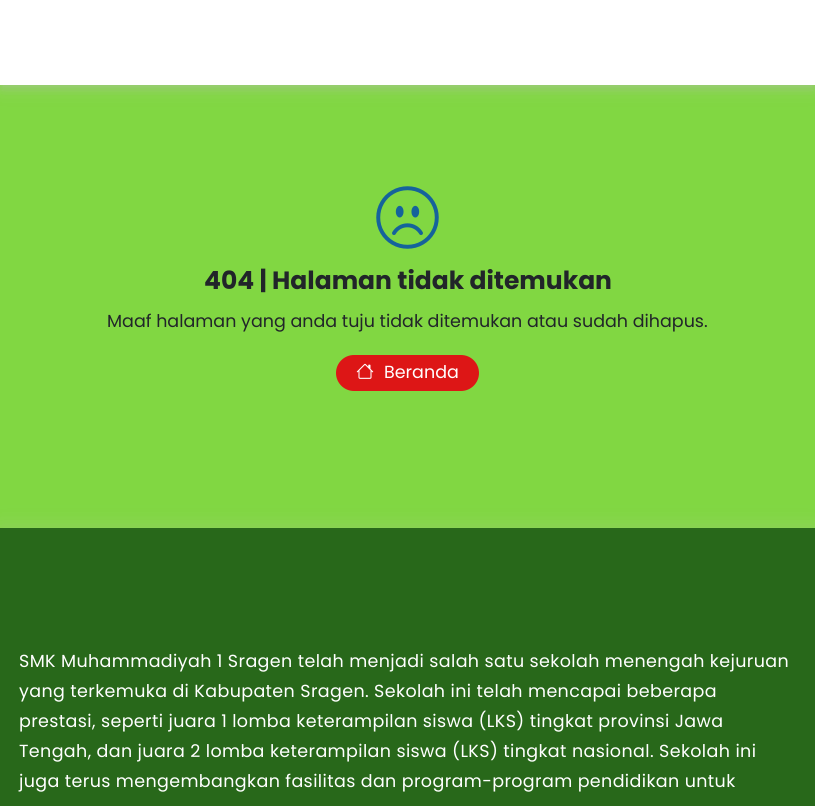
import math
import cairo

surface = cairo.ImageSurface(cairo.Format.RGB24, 815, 806)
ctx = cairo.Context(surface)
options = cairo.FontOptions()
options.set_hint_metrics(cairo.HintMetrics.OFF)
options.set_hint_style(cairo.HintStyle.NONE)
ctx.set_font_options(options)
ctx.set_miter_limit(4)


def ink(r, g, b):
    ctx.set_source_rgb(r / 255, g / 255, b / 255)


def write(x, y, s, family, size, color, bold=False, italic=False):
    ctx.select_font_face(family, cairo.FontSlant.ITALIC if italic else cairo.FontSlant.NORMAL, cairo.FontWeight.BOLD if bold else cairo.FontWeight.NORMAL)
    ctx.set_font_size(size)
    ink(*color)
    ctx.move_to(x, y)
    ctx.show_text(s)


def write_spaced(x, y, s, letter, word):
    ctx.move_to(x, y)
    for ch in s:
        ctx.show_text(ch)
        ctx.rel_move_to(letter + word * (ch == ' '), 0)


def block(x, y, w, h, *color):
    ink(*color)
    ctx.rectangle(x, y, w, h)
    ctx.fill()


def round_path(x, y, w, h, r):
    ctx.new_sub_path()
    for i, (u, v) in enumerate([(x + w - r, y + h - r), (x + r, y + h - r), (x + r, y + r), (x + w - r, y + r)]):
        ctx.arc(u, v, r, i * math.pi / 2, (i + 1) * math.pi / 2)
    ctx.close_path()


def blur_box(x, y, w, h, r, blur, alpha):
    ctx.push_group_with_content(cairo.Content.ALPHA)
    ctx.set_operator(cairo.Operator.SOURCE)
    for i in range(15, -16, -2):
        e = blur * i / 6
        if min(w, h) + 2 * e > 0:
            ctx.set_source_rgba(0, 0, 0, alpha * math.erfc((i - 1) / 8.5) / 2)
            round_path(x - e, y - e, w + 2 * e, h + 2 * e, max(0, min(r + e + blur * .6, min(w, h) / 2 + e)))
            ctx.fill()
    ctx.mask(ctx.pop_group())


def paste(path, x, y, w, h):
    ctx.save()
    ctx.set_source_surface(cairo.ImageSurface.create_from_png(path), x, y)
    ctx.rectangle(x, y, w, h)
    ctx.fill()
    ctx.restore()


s1 = dict(family="Poppins", size=25, color=(33, 37, 41), bold=True)
s2 = dict(family="Poppins", size=17.5, color=(33, 37, 41))
s3 = dict(family="Poppins", size=17.5, color=(255, 255, 255))

ink(129, 215, 66)
ctx.paint()
ink(186, 186, 186)
blur_box(0, 1, 815, 85, 0, 11, 0.3)
block(0, 0, 815, 85, 255, 255, 255)
ctx.save()
ctx.rectangle(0, 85, 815, 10)
ctx.clip()
ink(186, 186, 186)
blur_box(1, 6, 813, 83, 0, 4, 0.3)
ctx.restore()
paste("pic1.png", 376, 186, 63, 63)
write(204, 289, "404 | Halaman tidak ditemukan", **s1)
write(107, 327, "Maaf halaman yang anda tuju tidak ditemukan atau sudah dihapus.", **s2)
ink(221, 22, 22)
round_path(336, 355, 143, 36, 18)
ctx.fill()
paste("pic2.png", 356, 363, 18, 16)
write(384, 378, "Beranda", **s3)
ink(186, 186, 186)
blur_box(0, 529, 815, 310, 0, 11, 0.3)
block(0, 528, 815, 278, 40, 104, 26)
ink(255, 255, 255)
write_spaced(19, 667, "SMK Muhammadiyah 1 Sragen telah menjadi salah satu sekolah menengah kejuruan", 0.38, 0)
write_spaced(19, 697, "yang terkemuka di Kabupaten Sragen. Sekolah ini telah mencapai beberapa", 0.38, 0)
write_spaced(19, 727, "prestasi, seperti juara 1 lomba keterampilan siswa (LKS) tingkat provinsi Jawa", 0.38, 0)
write_spaced(19, 757, "Tengah, dan juara 2 lomba keterampilan siswa (LKS) tingkat nasional. Sekolah ini", 0.38, 0)
write_spaced(19, 787, "juga terus mengembangkan fasilitas dan program-program pendidikan untuk", 0.38, 0)
surface.write_to_png("screenshot.png")
